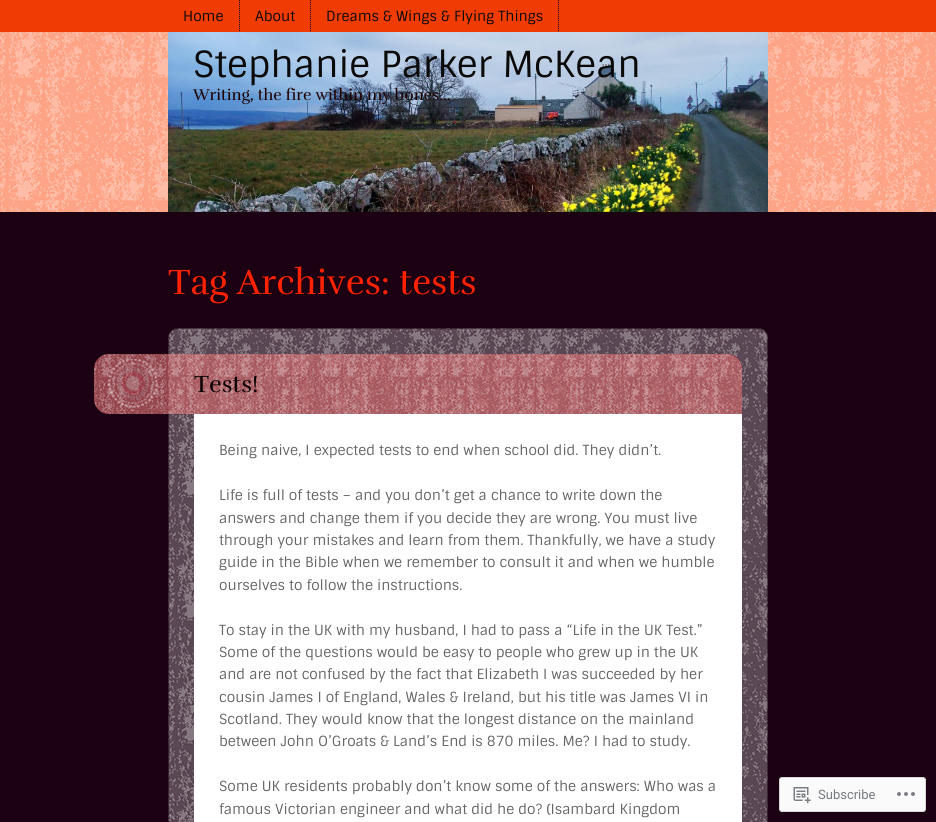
import math
import cairo

surface = cairo.ImageSurface(cairo.Format.RGB24, 936, 822)
ctx = cairo.Context(surface)
options = cairo.FontOptions()
options.set_hint_metrics(cairo.HintMetrics.OFF)
options.set_hint_style(cairo.HintStyle.NONE)
ctx.set_font_options(options)
ctx.set_miter_limit(4)


def ink(r, g, b):
    ctx.set_source_rgb(r / 255, g / 255, b / 255)


def write(x, y, s, family, size, color, bold=False, italic=False):
    ctx.select_font_face(family, cairo.FontSlant.ITALIC if italic else cairo.FontSlant.NORMAL, cairo.FontWeight.BOLD if bold else cairo.FontWeight.NORMAL)
    ctx.set_font_size(size)
    ink(*color)
    ctx.move_to(x, y)
    ctx.show_text(s)


def block(x, y, w, h, *color):
    ink(*color)
    ctx.rectangle(x, y, w, h)
    ctx.fill()


def round_path(x, y, w, h, r):
    ctx.new_sub_path()
    for i, (u, v) in enumerate([(x + w - r, y + h - r), (x + r, y + h - r), (x + r, y + r), (x + w - r, y + r)]):
        ctx.arc(u, v, r, i * math.pi / 2, (i + 1) * math.pi / 2)
    ctx.close_path()


def paste(path, x, y, w, h):
    ctx.save()
    ctx.set_source_surface(cairo.ImageSurface.create_from_png(path), x, y)
    ctx.rectangle(x, y, w, h)
    ctx.fill()
    ctx.restore()


s1 = dict(family="Sintony", size=14, color=(10, 10, 10))
s2 = dict(family="Sintony", size=36, color=(10, 10, 10))
s3 = dict(family="Rufina", size=16, color=(30, 1, 0))
s4 = dict(family="Rufina", size=36, color=(255, 34, 0))
s5 = dict(family="Rufina", size=24, color=(10, 0, 0))
s6 = dict(family="Sintony", size=14, color=(102, 102, 102))
s7 = dict(family="Roboto", size=13, color=(118, 122, 128))

ink(28, 1, 19)
ctx.paint()
block(0, 0, 936, 32, 240, 60, 2)
ctx.new_path()
ctx.move_to(239.5, 0)
ctx.line_to(239.5, 32)
ink(10, 10, 10)
ctx.set_line_width(1)
ctx.set_dash([1, 1])
ctx.stroke()
write(183, 21, "Home", **s1)
ctx.new_path()
ctx.move_to(310.5, 0)
ctx.line_to(310.5, 32)
ctx.stroke()
write(255, 21, "About", **s1)
ctx.new_path()
ctx.move_to(558.5, 0)
ctx.line_to(558.5, 32)
ctx.stroke()
write(326, 21, "Dreams & Wings & Flying Things", **s1)
block(0, 32, 936, 180, 253, 129, 88)
paste("pic1.png", 0, 32, 936, 180)
paste("pic2.png", 168, 32, 600, 180)
write(193, 77, "Stephanie Parker McKean", **s2)
write(193, 100, "Writing, the fire within my bones…", **s3)
write(168, 294, "Tag Archives: tests", **s4)
paste("pic3.png", 168, 328, 600, 494)
round_path(168.5, 328.5, 599, 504, 9.5)
ctx.set_source_rgba(0.11, 0.004, 0.075, 0.5)
ctx.set_dash([])
ctx.stroke()
ctx.set_source_rgba(0.639, 0, 0.024, 0.6)
ctx.new_path()
ctx.move_to(109, 354)
ctx.line_to(727, 354)
ctx.curve_to(735.5, 354, 742, 360.5, 742, 369)
ctx.line_to(742, 414)
ctx.line_to(109, 414)
ctx.curve_to(100.5, 414, 94, 407.5, 94, 399)
ctx.line_to(94, 369)
ctx.curve_to(94, 360.5, 100.5, 354, 109, 354)
ctx.close_path()
ctx.fill()
paste("pic5.png", 94, 354, 648, 60)
paste("pic4.png", 108, 359, 49, 49)
write(194, 392, "Tests!", **s5)
block(194, 414, 548, 408, 255, 255, 255)
write(219, 455, "Being naive, I expected tests to end when school did. They didn’t.", **s6)
write(219, 500, "Life is full of tests – and you don’t get a chance to write down the", **s6)
write(219, 523, "answers and change them if you decide they are wrong. You must live", **s6)
write(219, 545, "through your mistakes and learn from them. Thankfully, we have a study", **s6)
write(219, 567, "guide in the Bible when we remember to consult it and when we humble", **s6)
write(219, 590, "ourselves to follow the instructions.", **s6)
write(219, 635, "To stay in the UK with my husband, I had to pass a “Life in the UK Test.”", **s6)
write(219, 657, "Some of the questions would be easy to people who grew up in the UK", **s6)
write(219, 679, "and are not confused by the fact that Elizabeth I was succeeded by her", **s6)
write(219, 702, "cousin James I of England, Wales & Ireland, but his title was James VI in", **s6)
write(219, 724, "Scotland. They would know that the longest distance on the mainland", **s6)
write(219, 746, "between John O’Groats & Land’s End is 870 miles. Me? I had to study.", **s6)
write(219, 791, "Some UK residents probably don’t know some of the answers: Who was a", **s6)
write(219, 814, "famous Victorian engineer and what did he do? (Isambard Kingdom", **s6)
ink(250, 250, 250)
round_path(779.5, 777.5, 146, 34, 2.5)
ctx.fill_preserve()
ink(216, 216, 218)
ctx.stroke()
paste("pic6.png", 793, 787, 18, 17)
write(818, 799, "Subscribe", **s7)
paste("pic7.png", 897, 792, 18, 4)
surface.write_to_png("screenshot.png")
